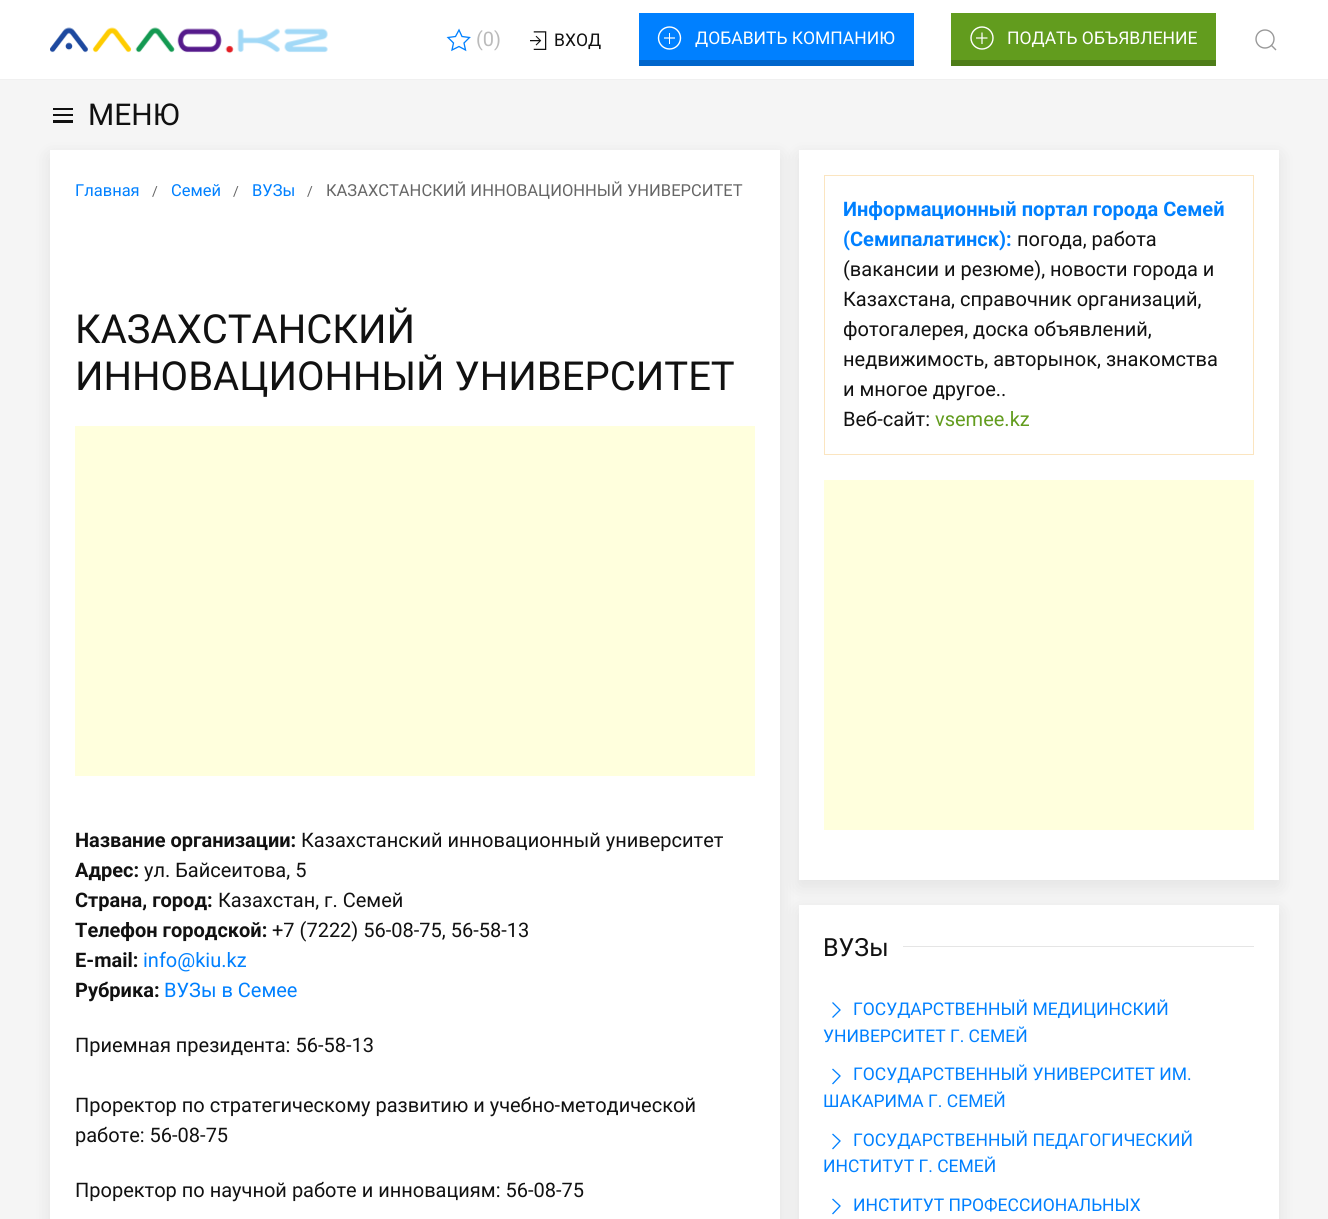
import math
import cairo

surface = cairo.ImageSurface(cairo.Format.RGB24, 1328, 1219)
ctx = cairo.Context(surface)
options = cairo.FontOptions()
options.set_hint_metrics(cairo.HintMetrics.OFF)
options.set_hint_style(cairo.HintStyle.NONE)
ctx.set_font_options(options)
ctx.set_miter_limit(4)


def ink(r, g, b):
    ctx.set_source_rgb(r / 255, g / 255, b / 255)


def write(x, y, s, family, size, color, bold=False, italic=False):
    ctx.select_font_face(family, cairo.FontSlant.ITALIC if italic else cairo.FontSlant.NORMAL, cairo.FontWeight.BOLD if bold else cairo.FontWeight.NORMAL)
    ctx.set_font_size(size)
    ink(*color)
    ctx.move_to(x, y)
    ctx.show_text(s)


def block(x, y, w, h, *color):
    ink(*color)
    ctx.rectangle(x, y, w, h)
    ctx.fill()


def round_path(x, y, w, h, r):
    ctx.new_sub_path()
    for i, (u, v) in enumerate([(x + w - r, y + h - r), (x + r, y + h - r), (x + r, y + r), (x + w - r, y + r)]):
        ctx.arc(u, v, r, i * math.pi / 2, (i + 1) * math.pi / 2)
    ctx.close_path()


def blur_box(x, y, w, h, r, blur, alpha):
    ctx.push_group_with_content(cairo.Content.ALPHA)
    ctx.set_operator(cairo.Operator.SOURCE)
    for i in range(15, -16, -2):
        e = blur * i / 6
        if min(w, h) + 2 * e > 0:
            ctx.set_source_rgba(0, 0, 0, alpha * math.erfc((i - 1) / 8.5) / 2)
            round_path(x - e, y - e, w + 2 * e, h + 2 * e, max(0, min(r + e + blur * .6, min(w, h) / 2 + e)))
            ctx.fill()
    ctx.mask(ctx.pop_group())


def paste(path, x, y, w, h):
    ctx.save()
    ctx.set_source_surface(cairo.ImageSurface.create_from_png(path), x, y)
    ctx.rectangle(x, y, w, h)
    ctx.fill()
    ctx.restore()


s1 = dict(family="Roboto", size=20, color=(187, 187, 187))
s2 = dict(family="Roboto", size=17.5, color=(17, 17, 17))
s3 = dict(family="Roboto", size=17.5, color=(255, 255, 255))
s4 = dict(family="Roboto", size=30, color=(17, 17, 17))
s5 = dict(family="Roboto", size=16.5, color=(0, 128, 255))
s6 = dict(family="Roboto", size=14, color=(102, 102, 102))
s7 = dict(family="Roboto", size=16.5, color=(102, 102, 102))
s8 = dict(family="Roboto", size=40, color=(17, 17, 17))
s9 = dict(family="Roboto", size=20, color=(17, 17, 17), bold=True)
s10 = dict(family="Roboto", size=20, color=(17, 17, 17))
s11 = dict(family="Roboto", size=20, color=(0, 128, 255))
s12 = dict(family="Roboto", size=20, color=(0, 128, 255), bold=True)
s13 = dict(family="Roboto", size=20, color=(98, 156, 30))
s14 = dict(family="Roboto", size=25, color=(17, 17, 17))
s15 = dict(family="Roboto", size=17.5, color=(0, 128, 255))

ink(245, 245, 245)
ctx.paint()
block(0, 0, 1328, 79, 255, 255, 255)
block(0, 79, 1328, 1, 240, 240, 240)
paste("pic1.png", 50, 27, 278, 27)
ctx.new_path()
ctx.move_to(459, 30)
ctx.line_to(462, 36.5)
ctx.line_to(469.5, 37.5)
ctx.line_to(464, 43)
ctx.line_to(465.5, 50)
ctx.line_to(459, 46.5)
ctx.line_to(452, 50)
ctx.line_to(453.5, 43)
ctx.line_to(448, 37.5)
ctx.line_to(455.5, 36.5)
ctx.close_path()
ink(0, 128, 255)
ctx.set_line_width(1.3)
ctx.stroke()
write(476, 46, "(0)", **s1)
paste("pic2.png", 530, 31, 17, 19)
write(554, 46, "ВХОД", **s2)
block(639, 13, 275, 47, 0, 128, 255)
block(639, 60, 275, 6, 0, 102, 204)
ctx.new_path()
ctx.arc(669.5, 38, 11, 0, 2 * math.pi)
ink(255, 255, 255)
ctx.set_line_width(1.4)
ctx.stroke()
block(669, 33, 1, 11, 255, 255, 255)
ctx.new_path()
ctx.move_to(664, 38)
ctx.line_to(675, 38)
ctx.set_line_width(1.2)
ctx.stroke()
write(695, 44, "ДОБАВИТЬ КОМПАНИЮ", **s3)
block(951, 13, 265, 47, 98, 156, 30)
block(951, 60, 265, 6, 78, 125, 24)
ctx.new_path()
ctx.arc(982, 38, 11, 0, 2 * math.pi)
ink(255, 255, 255)
ctx.set_line_width(1.4)
ctx.stroke()
ctx.new_path()
ctx.move_to(982, 32.5)
ctx.line_to(982, 44)
ctx.move_to(976, 38)
ctx.line_to(987.5, 38)
ctx.set_line_width(1.2)
ctx.stroke()
write(1007, 44, "ПОДАТЬ ОБЪЯВЛЕНИЕ", **s3)
ctx.new_path()
ctx.arc(1265, 39, 9, 0, 2 * math.pi)
ink(153, 153, 153)
ctx.set_line_width(1.4)
ctx.stroke()
ctx.new_path()
ctx.move_to(1271, 45)
ctx.line_to(1276, 50)
ctx.close_path()
ctx.stroke()
block(53, 108, 20, 2, 17, 17, 17)
block(53, 114, 20, 2, 17, 17, 17)
block(53, 120, 20, 3, 17, 17, 17)
write(88, 125, "МЕНЮ", **s4)
ink(0, 0, 0)
blur_box(50, 156, 730, 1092, 0, 9.5, 0.08)
block(50, 150, 730, 1069, 255, 255, 255)
write(75, 196, "Главная", **s5)
write(152, 196, "/", **s6)
write(171, 196, "Семей", **s5)
write(233, 196, "/", **s6)
write(252, 196, "ВУЗы", **s5)
write(307, 196, "/", **s6)
write(326, 196, "КАЗАХСТАНСКИЙ ИННОВАЦИОННЫЙ УНИВЕРСИТЕТ", **s7)
write(75, 343, "КАЗАХСТАНСКИЙ", **s8)
write(75, 390, "ИННОВАЦИОННЫЙ УНИВЕРСИТЕТ", **s8)
block(75, 426, 680, 350, 255, 255, 221)
write(75, 847, "Название организации:", **s9)
write(301, 847, "Казахстанский инновационный университет", **s10)
write(75, 877, "Адрес:", **s9)
write(144, 877, "ул. Байсеитова, 5", **s10)
write(75, 907, "Страна, город:", **s9)
write(218, 907, "Казахстан, г. Семей", **s10)
write(75, 937, "Телефон городской:", **s9)
write(272, 937, "+7 (7222) 56-08-75, 56-58-13", **s10)
write(75, 967, "E-mail:", **s9)
write(143, 967, "info@kiu.kz", **s11)
write(75, 997, "Рубрика:", **s9)
write(164, 997, "ВУЗы в Семее", **s11)
write(75, 1052, "Приемная президента: 56-58-13", **s10)
write(75, 1112, "Проректор по стратегическому развитию и учебно-методической", **s10)
write(75, 1142, "работе: 56-08-75", **s10)
write(75, 1197, "Проректор по научной работе и инновациям: 56-08-75", **s10)
ink(0, 0, 0)
blur_box(799, 156, 480, 730, 0, 9.5, 0.08)
block(799, 150, 480, 730, 255, 255, 255)
ctx.rectangle(824.5, 175.5, 429, 279)
ink(251, 229, 192)
ctx.set_line_width(1)
ctx.stroke()
write(843, 216, "Информационный портал города Семей", **s12)
write(843, 246, "(Семипалатинск):", **s12)
write(1017, 246, "погода, работа", **s10)
write(843, 276, "(вакансии и резюме), новости города и", **s10)
write(843, 306, "Казахстана, справочник организаций,", **s10)
write(843, 336, "фотогалерея, доска объявлений,", **s10)
write(843, 366, "недвижимость, авторынок, знакомства", **s10)
write(843, 396, "и многое другое..", **s10)
write(843, 426, "Веб-сайт:", **s10)
write(935, 426, "vsemee.kz", **s13)
block(824, 480, 430, 350, 255, 255, 221)
ink(0, 0, 0)
blur_box(799, 911, 480, 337, 0, 9.5, 0.08)
block(799, 905, 480, 314, 255, 255, 255)
write(823, 956, "ВУЗы", **s14)
block(903, 946, 351, 1, 229, 229, 229)
ctx.new_path()
ctx.move_to(832.5, 1002.5)
ctx.line_to(840, 1010)
ctx.line_to(832.5, 1017.5)
ink(0, 128, 255)
ctx.set_line_width(1.3)
ctx.stroke()
write(853, 1015, "ГОСУДАРСТВЕННЫЙ МЕДИЦИНСКИЙ", **s15)
write(823, 1042, "УНИВЕРСИТЕТ Г. СЕМЕЙ", **s15)
ctx.new_path()
ctx.move_to(832.5, 1069)
ctx.line_to(840, 1076)
ctx.line_to(832.5, 1084)
ctx.stroke()
write(853, 1080, "ГОСУДАРСТВЕННЫЙ УНИВЕРСИТЕТ ИМ.", **s15)
write(823, 1107, "ШАКАРИМА Г. СЕМЕЙ", **s15)
ctx.new_path()
ctx.move_to(832.5, 1134)
ctx.line_to(840, 1141)
ctx.line_to(832.5, 1149)
ctx.stroke()
write(853, 1146, "ГОСУДАРСТВЕННЫЙ ПЕДАГОГИЧЕСКИЙ", **s15)
write(823, 1172, "ИНСТИТУТ Г. СЕМЕЙ", **s15)
ctx.new_path()
ctx.move_to(832.5, 1199)
ctx.line_to(840, 1206)
ctx.line_to(832.5, 1214)
ctx.stroke()
write(853, 1211, "ИНСТИТУТ ПРОФЕССИОНАЛЬНЫХ", **s15)
surface.write_to_png("screenshot.png")
